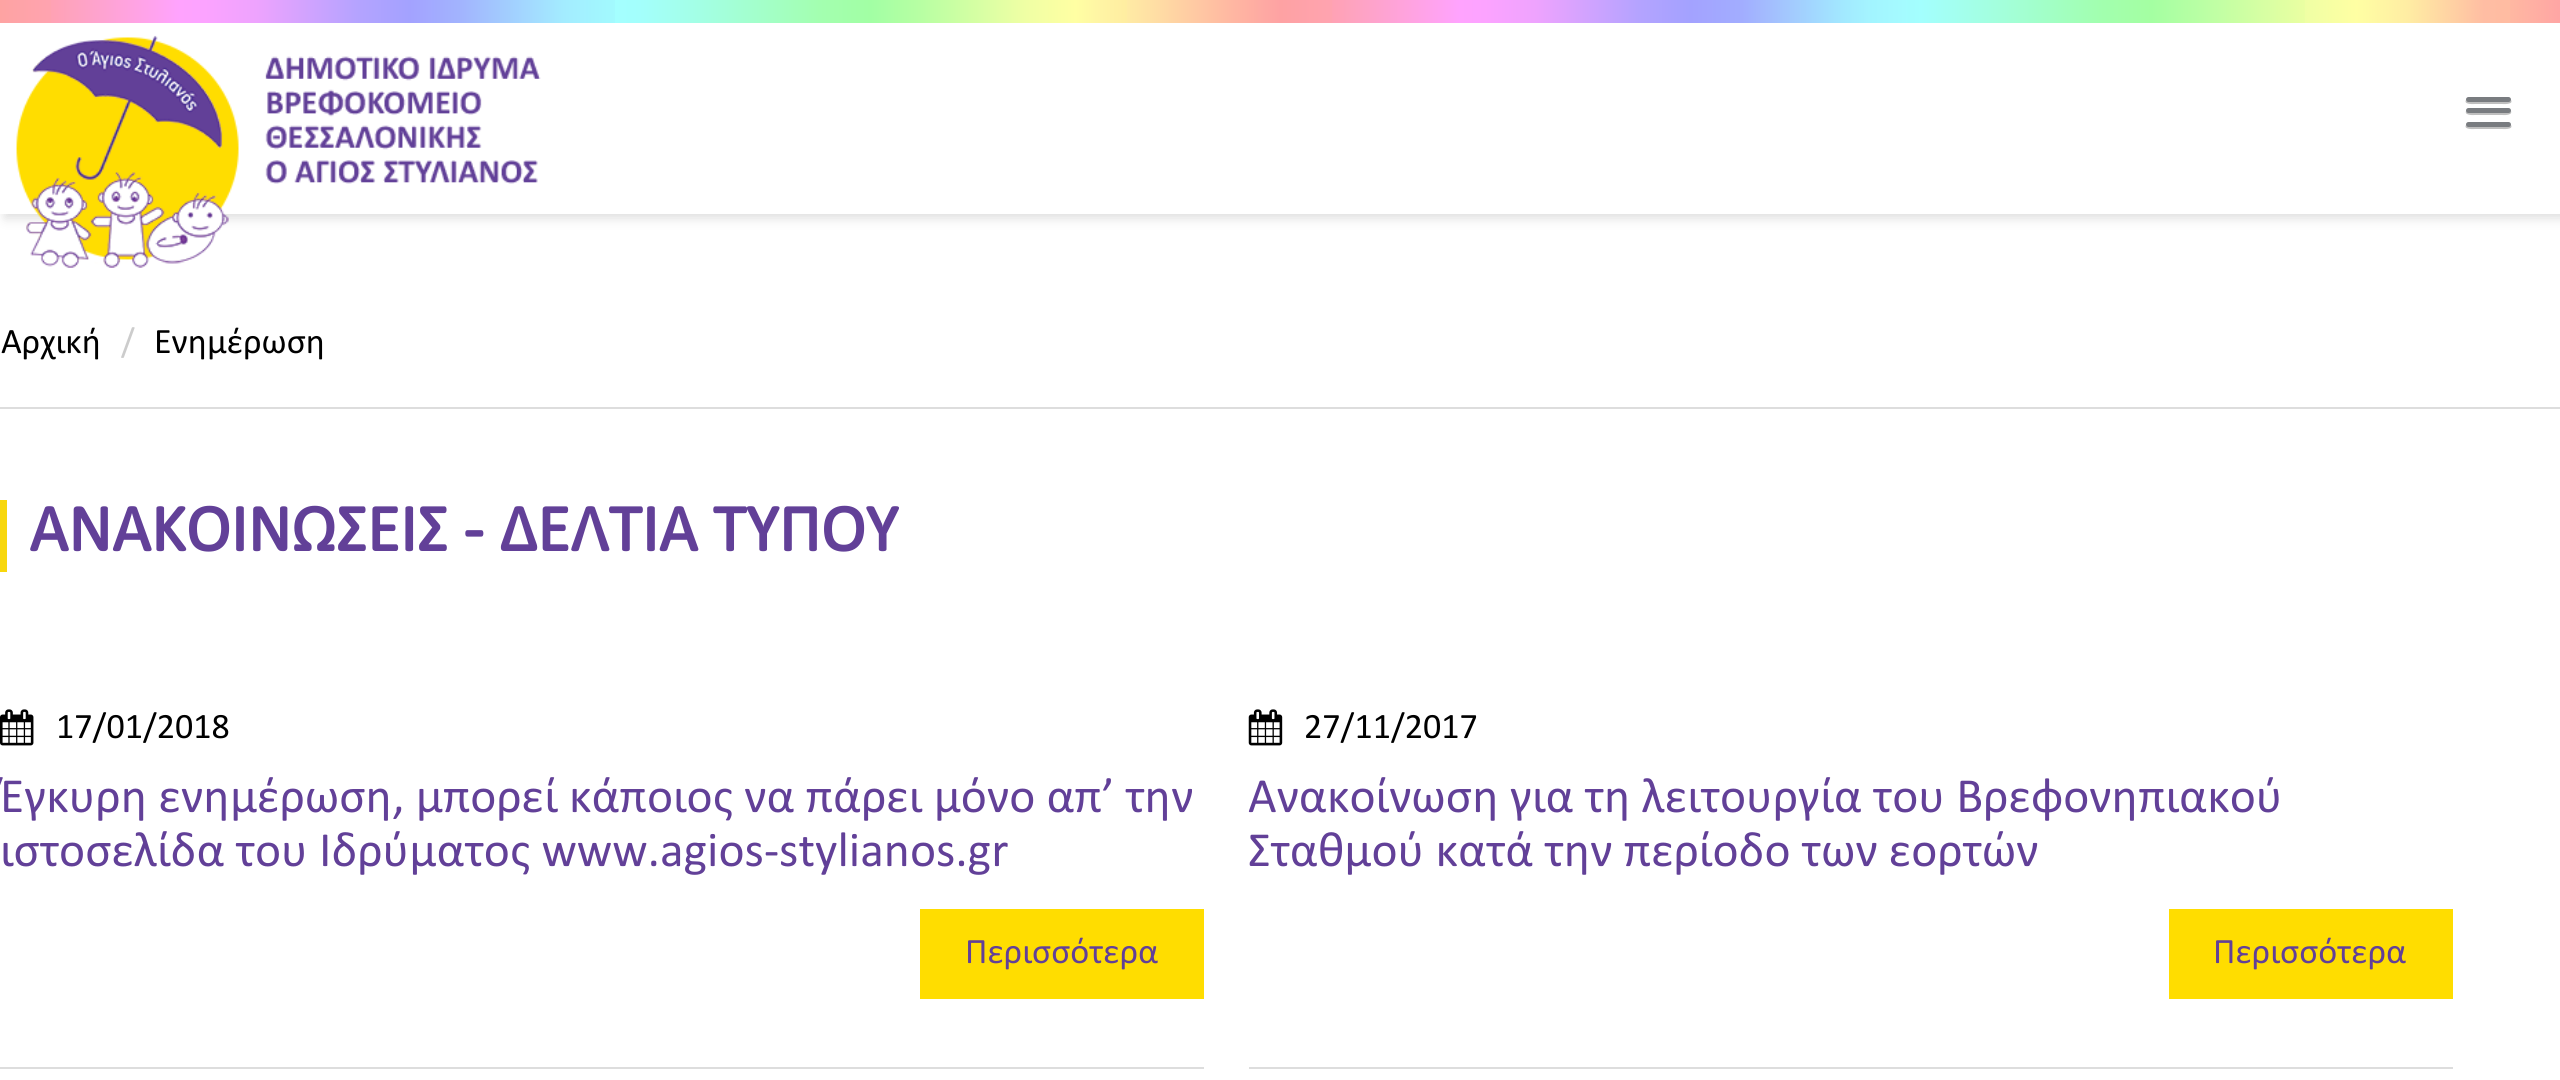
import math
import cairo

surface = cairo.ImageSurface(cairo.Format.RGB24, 2560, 1080)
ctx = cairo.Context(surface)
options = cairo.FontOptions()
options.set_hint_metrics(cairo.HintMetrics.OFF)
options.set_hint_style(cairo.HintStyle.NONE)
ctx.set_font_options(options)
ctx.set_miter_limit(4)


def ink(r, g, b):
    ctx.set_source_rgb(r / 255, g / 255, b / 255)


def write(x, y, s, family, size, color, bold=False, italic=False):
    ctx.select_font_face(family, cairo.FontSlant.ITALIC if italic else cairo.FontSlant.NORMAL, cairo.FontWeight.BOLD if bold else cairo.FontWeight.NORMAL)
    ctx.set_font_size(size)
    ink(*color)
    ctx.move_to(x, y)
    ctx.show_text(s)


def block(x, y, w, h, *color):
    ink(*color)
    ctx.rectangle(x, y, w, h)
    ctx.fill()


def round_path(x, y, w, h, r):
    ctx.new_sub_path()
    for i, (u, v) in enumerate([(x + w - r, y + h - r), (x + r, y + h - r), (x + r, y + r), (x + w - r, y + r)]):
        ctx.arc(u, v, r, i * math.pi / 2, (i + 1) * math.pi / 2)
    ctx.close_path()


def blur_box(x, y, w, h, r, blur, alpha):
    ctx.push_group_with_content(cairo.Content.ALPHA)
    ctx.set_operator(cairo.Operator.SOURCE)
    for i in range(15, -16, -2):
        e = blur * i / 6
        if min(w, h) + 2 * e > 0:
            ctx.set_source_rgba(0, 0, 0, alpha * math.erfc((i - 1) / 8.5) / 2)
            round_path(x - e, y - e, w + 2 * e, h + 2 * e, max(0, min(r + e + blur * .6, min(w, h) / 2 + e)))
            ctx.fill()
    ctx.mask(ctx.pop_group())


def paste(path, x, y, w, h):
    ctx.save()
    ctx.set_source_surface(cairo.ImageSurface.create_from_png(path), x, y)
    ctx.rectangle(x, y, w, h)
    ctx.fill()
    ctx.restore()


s1 = dict(family="Calibri", size=36, color=(0, 0, 0))
s2 = dict(family="Calibri", size=36, color=(204, 204, 204))
s3 = dict(family="Calibri", size=67.5, color=(98, 64, 152), bold=True)
s4 = dict(family="Calibri", size=49.5, color=(98, 64, 152))
s5 = dict(family="Calibri", size=36, color=(98, 64, 152))

ink(255, 255, 255)
ctx.paint()
ctx.save()
ctx.set_fill_rule(cairo.FillRule.EVEN_ODD)
ctx.new_path()
ctx.move_to(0, 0)
ctx.line_to(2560, 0)
ctx.line_to(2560, 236)
ctx.line_to(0, 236)
ctx.close_path()
ctx.move_to(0, 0)
ctx.line_to(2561, 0)
ctx.line_to(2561, 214)
ctx.line_to(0, 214)
ctx.close_path()
ctx.clip()
ink(221, 221, 221)
blur_box(5, 5, 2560, 213, 0, 5.5, 1)
ctx.restore()
gradient = cairo.LinearGradient(0, 11, 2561, 11)
gradient.add_color_stop_rgba(0, 0.996, 0.639, 0.635, 1)
gradient.add_color_stop_rgba(0.02, 1, 0.639, 0.69, 1)
gradient.add_color_stop_rgba(0.02, 1, 0.635, 0.706, 1)
gradient.add_color_stop_rgba(0.03, 0.996, 0.639, 0.761, 1)
gradient.add_color_stop_rgba(0.06, 1, 0.639, 0.933, 1)
gradient.add_color_stop_rgba(0.07, 1, 0.639, 0.996, 1)
gradient.add_color_stop_rgba(0.08, 0.988, 0.639, 1, 1)
gradient.add_color_stop_rgba(0.1, 0.933, 0.639, 0.996, 1)
gradient.add_color_stop_rgba(0.14, 0.706, 0.639, 1, 1)
gradient.add_color_stop_rgba(0.16, 0.639, 0.635, 1, 1)
gradient.add_color_stop_rgba(0.18, 0.635, 0.706, 0.996, 1)
gradient.add_color_stop_rgba(0.22, 0.639, 0.925, 1, 1)
gradient.add_color_stop_rgba(0.24, 0.635, 0.98, 0.996, 1)
gradient.add_color_stop_rgba(0.24, 0.643, 1, 1, 1)
gradient.add_color_stop_rgba(0.25, 0.639, 1, 0.988, 1)
gradient.add_color_stop_rgba(0.27, 0.639, 1, 0.91, 1)
gradient.add_color_stop_rgba(0.32, 0.639, 1, 0.69, 1)
gradient.add_color_stop_rgba(0.34, 0.635, 1, 0.643, 1)
gradient.add_color_stop_rgba(0.36, 0.722, 1, 0.639, 1)
gradient.add_color_stop_rgba(0.4, 0.937, 1, 0.643, 1)
gradient.add_color_stop_rgba(0.42, 1, 1, 0.639, 1)
gradient.add_color_stop_rgba(0.43, 1, 0.957, 0.643, 1)
gradient.add_color_stop_rgba(0.44, 1, 0.929, 0.631, 1)
gradient.add_color_stop_rgba(0.44, 1, 0.922, 0.643, 1)
gradient.add_color_stop_rgba(0.45, 1, 0.875, 0.643, 1)
gradient.add_color_stop_rgba(0.48, 1, 0.722, 0.635, 1)
gradient.add_color_stop_rgba(0.5, 0.996, 0.635, 0.639, 1)
gradient.add_color_stop_rgba(0.52, 1, 0.639, 0.69, 1)
gradient.add_color_stop_rgba(0.52, 1, 0.635, 0.706, 1)
gradient.add_color_stop_rgba(0.53, 0.996, 0.639, 0.761, 1)
gradient.add_color_stop_rgba(0.56, 1, 0.639, 0.933, 1)
gradient.add_color_stop_rgba(0.57, 1, 0.639, 0.996, 1)
gradient.add_color_stop_rgba(0.58, 0.988, 0.639, 1, 1)
gradient.add_color_stop_rgba(0.6, 0.933, 0.639, 0.996, 1)
gradient.add_color_stop_rgba(0.64, 0.706, 0.639, 1, 1)
gradient.add_color_stop_rgba(0.66, 0.639, 0.635, 1, 1)
gradient.add_color_stop_rgba(0.68, 0.635, 0.678, 1, 1)
gradient.add_color_stop_rgba(0.69, 0.639, 0.737, 0.996, 1)
gradient.add_color_stop_rgba(0.72, 0.635, 0.914, 1, 1)
gradient.add_color_stop_rgba(0.73, 0.643, 0.957, 1, 1)
gradient.add_color_stop_rgba(0.73, 0.635, 0.957, 1, 1)
gradient.add_color_stop_rgba(0.74, 0.643, 0.976, 1, 1)
gradient.add_color_stop_rgba(0.75, 0.639, 1, 0.996, 1)
gradient.add_color_stop_rgba(0.77, 0.639, 1, 0.91, 1)
gradient.add_color_stop_rgba(0.82, 0.635, 1, 0.686, 1)
gradient.add_color_stop_rgba(0.84, 0.643, 1, 0.635, 1)
gradient.add_color_stop_rgba(0.86, 0.729, 1, 0.643, 1)
gradient.add_color_stop_rgba(0.9, 0.918, 1, 0.635, 1)
gradient.add_color_stop_rgba(0.9, 0.937, 1, 0.643, 1)
gradient.add_color_stop_rgba(0.92, 1, 1, 0.639, 1)
gradient.add_color_stop_rgba(0.94, 1, 0.929, 0.639, 1)
gradient.add_color_stop_rgba(0.97, 1, 0.741, 0.639, 1)
gradient.add_color_stop_rgba(0.98, 1, 0.737, 0.635, 1)
gradient.add_color_stop_rgba(0.98, 1, 0.722, 0.635, 1)
gradient.add_color_stop_rgba(1, 1, 0.647, 0.643, 1)
gradient.add_color_stop_rgba(1, 1, 0.643, 0.639, 1)
ctx.set_source(gradient)
ctx.rectangle(0, 0, 2560, 23)
ctx.fill()
paste("pic1.png", 16, 35, 525, 233)
ink(191, 191, 191)
ctx.new_path()
ctx.move_to(2466, 100)
ctx.curve_to(2463, 105, 2475, 104, 2475, 104)
ctx.line_to(2502, 104)
ctx.curve_to(2502, 104, 2514, 105, 2511, 100)
ctx.line_to(2509, 101)
ctx.line_to(2468, 101)
ctx.close_path()
ctx.fill()
ink(121, 124, 128)
round_path(2466, 97, 45, 5, 2.5)
ctx.fill()
ink(191, 191, 191)
ctx.new_path()
ctx.move_to(2466, 111)
ctx.curve_to(2464, 116, 2475, 115, 2475, 115)
ctx.line_to(2502, 115)
ctx.curve_to(2502, 115, 2513, 116, 2511, 111)
ctx.line_to(2509, 112)
ctx.line_to(2468, 112)
ctx.close_path()
ctx.fill()
ink(121, 124, 128)
round_path(2466, 108, 45, 5, 2.5)
ctx.fill()
ink(191, 191, 191)
ctx.new_path()
ctx.move_to(2466, 125)
ctx.curve_to(2463, 130, 2475, 129, 2475, 129)
ctx.line_to(2502, 129)
ctx.curve_to(2502, 129, 2514, 130, 2511, 125)
ctx.line_to(2509, 126)
ctx.line_to(2468, 126)
ctx.close_path()
ctx.fill()
ink(121, 124, 128)
round_path(2466, 122, 45, 5, 2.5)
ctx.fill()
block(0, 407, 2560, 2, 221, 221, 221)
write(1, 353, "Αρχική", **s1)
write(121, 353, "/", **s2)
write(154, 353, "Ενημέρωση", **s1)
block(0, 500, 7, 72, 248, 215, 12)
write(29, 551, "ΑΝΑΚΟΙΝΩΣΕΙΣ - ΔΕΛΤΙΑ ΤΥΠΟΥ", **s3)
block(0, 1067, 1204, 2, 221, 221, 221)
paste("pic2.png", 0, 709, 34, 37)
write(56, 738, "17/01/2018", **s1)
write(0, 812, "Έγκυρη ενημέρωση, μπορεί κάποιος να πάρει μόνο απ’ την", **s4)
write(0, 866, "ιστοσελίδα του Ιδρύματος www.agios-stylianos.gr", **s4)
block(920, 909, 284, 90, 255, 221, 0)
write(965, 963, "Περισσότερα", **s5)
block(1249, 1067, 1204, 2, 221, 221, 221)
paste("pic3.png", 1248, 709, 35, 37)
write(1304, 738, "27/11/2017", **s1)
write(1248, 812, "Ανακοίνωση για τη λειτουργία του Βρεφονηπιακού", **s4)
write(1248, 866, "Σταθμού κατά την περίοδο των εορτών", **s4)
block(2169, 909, 284, 90, 255, 221, 0)
write(2213, 963, "Περισσότερα", **s5)
surface.write_to_png("screenshot.png")
